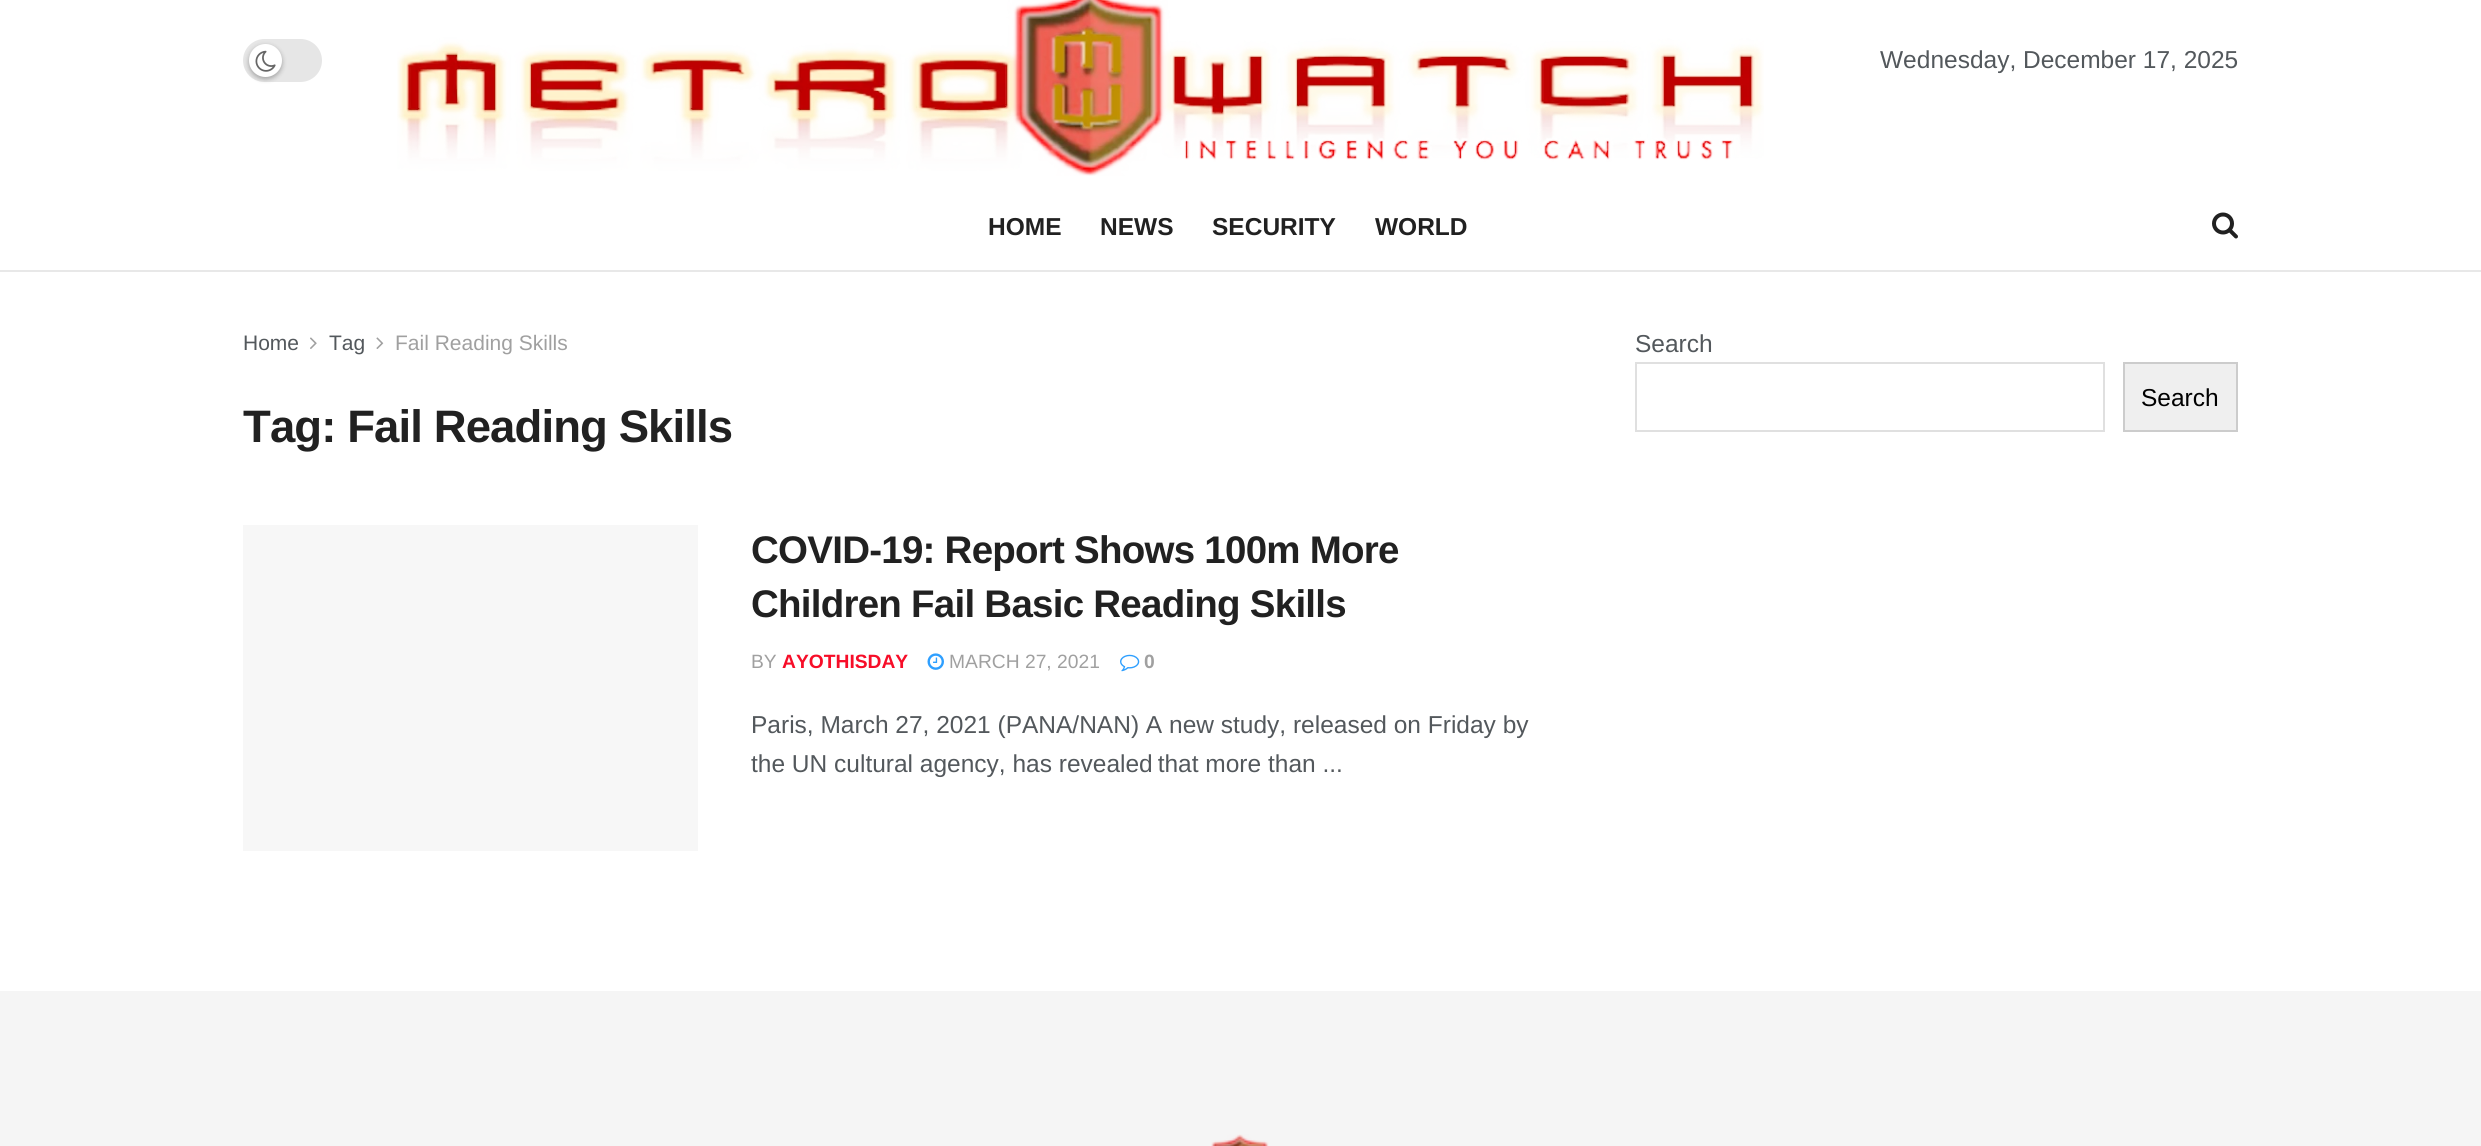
import math
import cairo

surface = cairo.ImageSurface(cairo.Format.RGB24, 2481, 1146)
ctx = cairo.Context(surface)
options = cairo.FontOptions()
options.set_hint_metrics(cairo.HintMetrics.OFF)
options.set_hint_style(cairo.HintStyle.NONE)
ctx.set_font_options(options)
ctx.set_miter_limit(4)


def ink(r, g, b):
    ctx.set_source_rgb(r / 255, g / 255, b / 255)


def write(x, y, s, family, size, color, bold=False, italic=False):
    ctx.select_font_face(family, cairo.FontSlant.ITALIC if italic else cairo.FontSlant.NORMAL, cairo.FontWeight.BOLD if bold else cairo.FontWeight.NORMAL)
    ctx.set_font_size(size)
    ink(*color)
    ctx.move_to(x, y)
    ctx.show_text(s)


def write_spaced(x, y, s, letter, word):
    ctx.move_to(x, y)
    for ch in s:
        ctx.show_text(ch)
        ctx.rel_move_to(letter + word * (ch == ' '), 0)


def block(x, y, w, h, *color):
    ink(*color)
    ctx.rectangle(x, y, w, h)
    ctx.fill()


def round_path(x, y, w, h, r):
    ctx.new_sub_path()
    for i, (u, v) in enumerate([(x + w - r, y + h - r), (x + r, y + h - r), (x + r, y + r), (x + w - r, y + r)]):
        ctx.arc(u, v, r, i * math.pi / 2, (i + 1) * math.pi / 2)
    ctx.close_path()


def blur_box(x, y, w, h, r, blur, alpha):
    ctx.push_group_with_content(cairo.Content.ALPHA)
    ctx.set_operator(cairo.Operator.SOURCE)
    for i in range(15, -16, -2):
        e = blur * i / 6
        if min(w, h) + 2 * e > 0:
            ctx.set_source_rgba(0, 0, 0, alpha * math.erfc((i - 1) / 8.5) / 2)
            round_path(x - e, y - e, w + 2 * e, h + 2 * e, max(0, min(r + e + blur * .6, min(w, h) / 2 + e)))
            ctx.fill()
    ctx.mask(ctx.pop_group())


def paste(path, x, y, w, h):
    ctx.save()
    ctx.set_source_surface(cairo.ImageSurface.create_from_png(path), x, y)
    ctx.rectangle(x, y, w, h)
    ctx.fill()
    ctx.restore()


s1 = dict(family="Liberation Sans", size=24.5, color=(83, 88, 92))
s2 = dict(family="Liberation Sans", size=24.5, color=(33, 33, 33), bold=True)
s3 = dict(family="Liberation Sans", size=21, color=(83, 88, 92))
s4 = dict(family="Liberation Sans", size=21, color=(160, 160, 160))
s5 = dict(family="Liberation Sans", size=19.25, color=(160, 160, 160))
s6 = dict(family="Liberation Sans", size=19.25, color=(247, 13, 40), bold=True)
s7 = dict(family="Liberation Sans", size=19.25, color=(160, 160, 160), bold=True)
s8 = dict(family="Liberation Sans", size=24.5, color=(0, 0, 0))

ink(255, 255, 255)
ctx.paint()
ink(230, 230, 230)
round_path(243, 39, 79, 43, 21.5)
ctx.fill()
ink(0, 0, 0)
blur_box(249, 46, 33, 33, 16.5, 2.5, 0.3)
ink(255, 255, 255)
ctx.arc(265.5, 60.5, 16.5, 0, 2 * math.pi)
ctx.fill()
paste("pic1.png", 255, 50, 21, 22)
paste("pic2.png", 397, 0, 1367, 176)
write(1880, 68, "Wednesday, December 17, 2025", **s1)
block(0, 270, 2481, 2, 232, 232, 232)
write(988, 235, "HOME", **s2)
write(1100, 235, "NEWS", **s2)
write(1212, 235, "SECURITY", **s2)
write(1375, 235, "WORLD", **s2)
paste("pic3.png", 2212, 212, 26, 27)
write(243, 350, "Home", **s3)
paste("pic4.png", 310, 337, 7, 12)
write(329, 350, "Tag", **s3)
paste("pic5.png", 376, 337, 8, 12)
write(395, 350, "Fail Reading Skills", **s4)
ctx.select_font_face("Liberation Sans", cairo.FontSlant.NORMAL, cairo.FontWeight.BOLD)
ctx.set_font_size(45.5)
ink(33, 33, 33)
write_spaced(243, 442, "Tag: Fail Reading Skills", -0.9, 0)
block(243, 525, 455, 326, 247, 247, 247)
ctx.set_font_size(38.5)
ink(33, 33, 33)
write_spaced(751, 563, "COVID-19: Report Shows 100m More", -0.75, 0)
write_spaced(751, 617, "Children Fail Basic Reading Skills", -0.75, 0)
write(751, 668, "BY", **s5)
write(782, 668, "AYOTHISDAY", **s6)
paste("pic6.png", 927, 653, 17, 17)
write(949, 668, "MARCH 27, 2021", **s5)
paste("pic7.png", 1120, 654, 20, 18)
write(1144, 668, "0", **s7)
write(751, 733, "Paris, March 27, 2021 (PANA/NAN) A new study, released on Friday by", **s1)
write(751, 772, "the UN cultural agency, has revealed that more than ...", **s1)
write(1635, 352, "Search", **s1)
ctx.rectangle(1636, 363, 468, 68)
ink(224, 224, 224)
ctx.stroke()
ink(239, 239, 239)
ctx.rectangle(2124, 363, 113, 68)
ctx.fill_preserve()
ink(204, 204, 204)
ctx.stroke()
write(2141, 406, "Search", **s8)
block(0, 991, 2481, 155, 245, 245, 245)
paste("pic8.png", 1211, 1134, 58, 12)
surface.write_to_png("screenshot.png")
